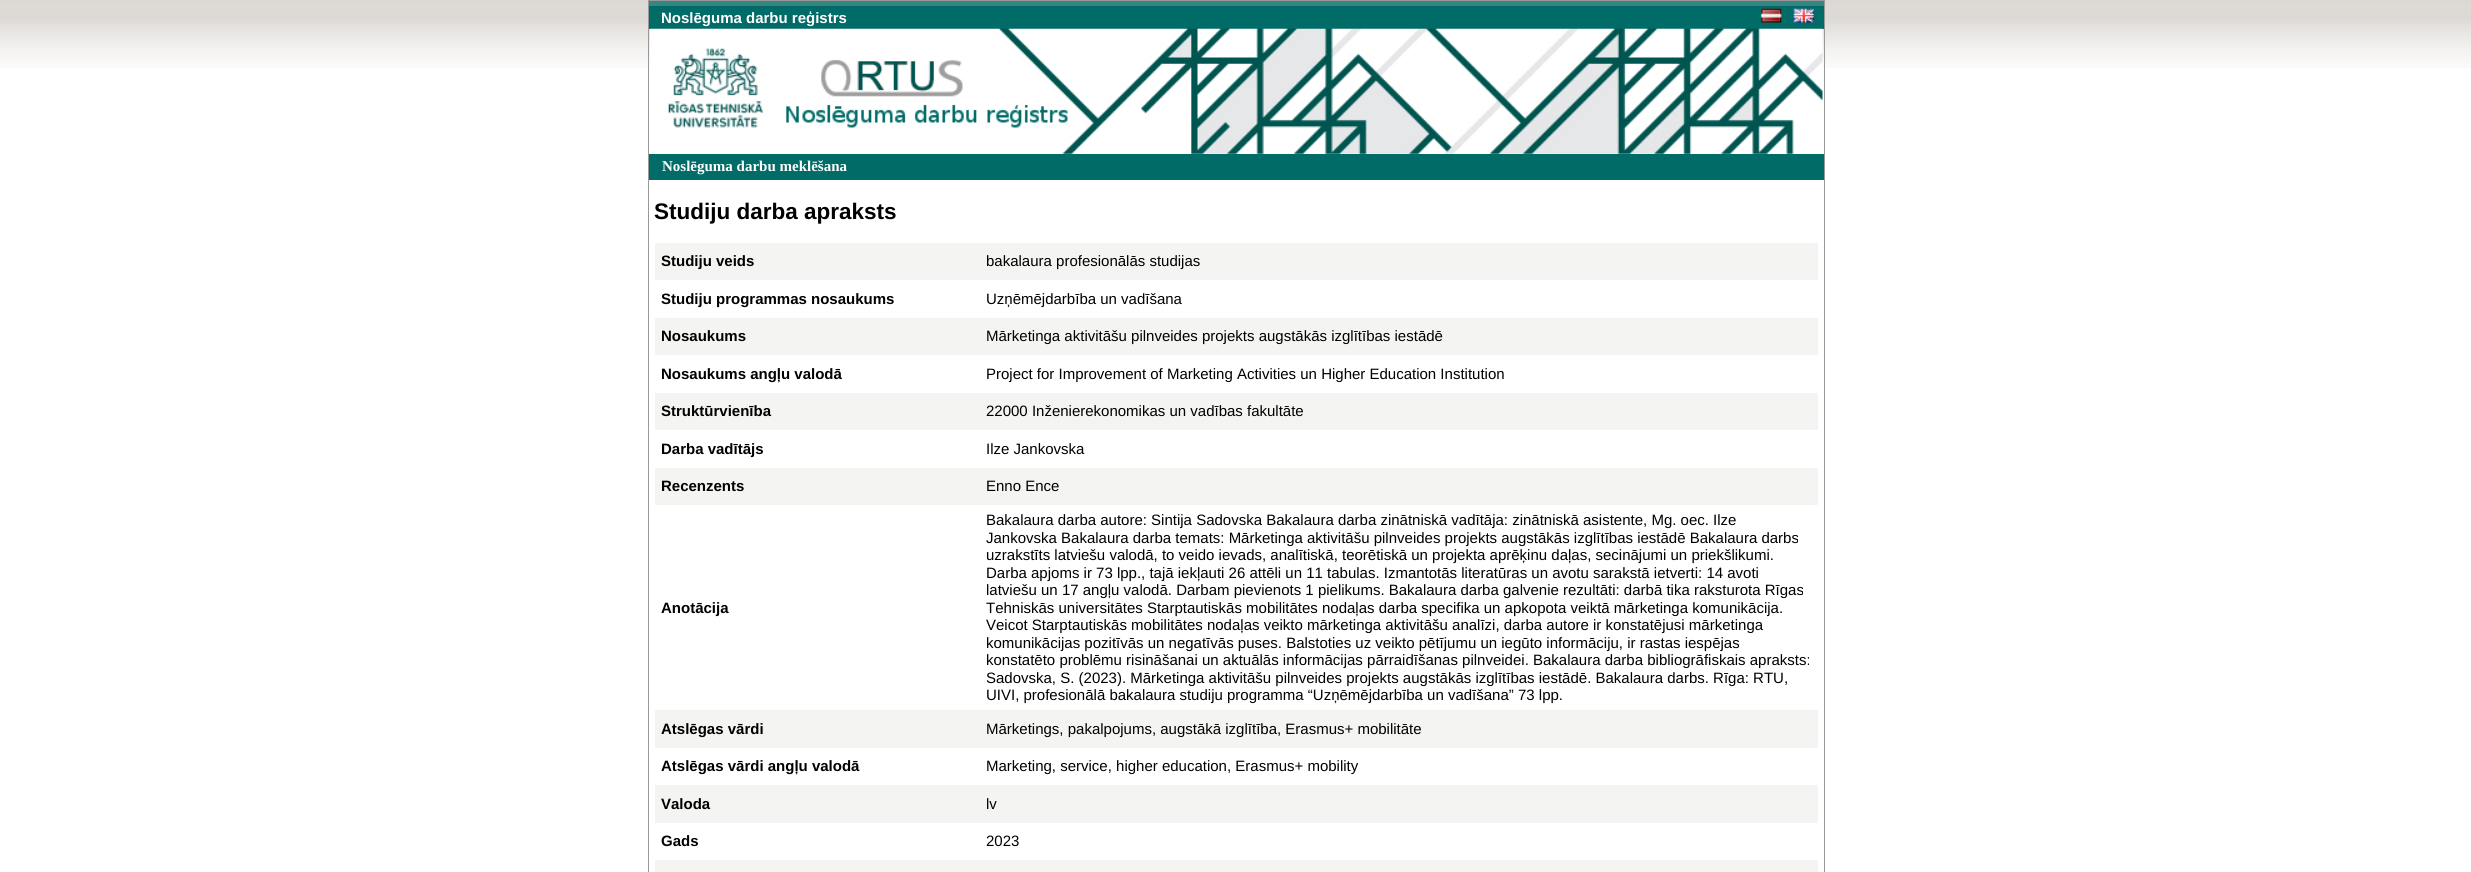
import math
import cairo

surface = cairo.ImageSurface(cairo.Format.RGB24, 2471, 872)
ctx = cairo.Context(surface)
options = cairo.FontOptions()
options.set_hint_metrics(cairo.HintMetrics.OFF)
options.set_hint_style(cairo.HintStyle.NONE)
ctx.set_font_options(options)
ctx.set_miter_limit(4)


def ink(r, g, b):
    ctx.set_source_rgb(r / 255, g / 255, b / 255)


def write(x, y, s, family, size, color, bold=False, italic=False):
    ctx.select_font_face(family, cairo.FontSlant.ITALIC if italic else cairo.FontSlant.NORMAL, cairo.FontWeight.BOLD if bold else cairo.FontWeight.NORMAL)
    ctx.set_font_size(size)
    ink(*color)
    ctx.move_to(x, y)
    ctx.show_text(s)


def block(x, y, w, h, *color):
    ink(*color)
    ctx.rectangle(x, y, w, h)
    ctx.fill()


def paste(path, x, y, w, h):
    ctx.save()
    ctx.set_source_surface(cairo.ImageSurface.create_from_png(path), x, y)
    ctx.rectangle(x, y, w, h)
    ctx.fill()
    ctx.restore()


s1 = dict(family="Liberation Sans", size=15, color=(255, 255, 255), bold=True)
s2 = dict(family="Liberation Serif", size=15, color=(255, 255, 255), bold=True)
s3 = dict(family="Liberation Sans", size=22.5, color=(0, 0, 0), bold=True)
s4 = dict(family="Liberation Sans", size=15, color=(0, 0, 0), bold=True)
s5 = dict(family="Liberation Sans", size=15, color=(0, 0, 0))

ink(255, 255, 255)
ctx.paint()
paste("pic1.png", 0, 0, 2471, 68)
ctx.rectangle(648.5, 0.5, 1176, 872)
ink(153, 153, 153)
ctx.set_line_width(1)
ctx.stroke()
block(649, 1, 1175, 5, 52, 134, 131)
block(649, 6, 1175, 23, 0, 107, 103)
write(661, 23, "Noslēguma darbu reģistrs", **s1)
paste("pic2.png", 1761, 8, 21, 15)
paste("pic3.png", 1793, 8, 21, 15)
paste("pic4.png", 650, 28, 1173, 126)
block(649, 154, 1175, 26, 0, 107, 103)
write(662, 171, "Noslēguma darbu meklēšana", **s2)
write(654, 219, "Studiju darba apraksts", **s3)
block(655, 243, 1163, 37, 244, 244, 242)
write(661, 266, "Studiju veids", **s4)
write(986, 266, "bakalaura profesionālās studijas", **s5)
write(661, 304, "Studiju programmas nosaukums", **s4)
write(986, 304, "Uzņēmējdarbība un vadīšana", **s5)
block(655, 318, 1163, 37, 244, 244, 242)
write(661, 341, "Nosaukums", **s4)
write(986, 341, "Mārketinga aktivitāšu pilnveides projekts augstākās izglītības iestādē", **s5)
write(661, 379, "Nosaukums angļu valodā", **s4)
write(986, 379, "Project for Improvement of Marketing Activities un Higher Education Institution", **s5)
block(655, 393, 1163, 37, 244, 244, 242)
write(661, 416, "Struktūrvienība", **s4)
write(986, 416, "22000 Inženierekonomikas un vadības fakultāte", **s5)
write(661, 454, "Darba vadītājs", **s4)
write(986, 454, "Ilze Jankovska", **s5)
block(655, 468, 1163, 37, 244, 244, 242)
write(661, 491, "Recenzents", **s4)
write(986, 491, "Enno Ence", **s5)
write(661, 613, "Anotācija", **s4)
write(986, 525, "Bakalaura darba autore: Sintija Sadovska Bakalaura darba zinātniskā vadītāja: zinātniskā asistente, Mg. oec. Ilze", **s5)
write(986, 543, "Jankovska Bakalaura darba temats: Mārketinga aktivitāšu pilnveides projekts augstākās izglītības iestādē Bakalaura darbs", **s5)
write(986, 560, "uzrakstīts latviešu valodā, to veido ievads, analītiskā, teorētiskā un projekta aprēķinu daļas, secinājumi un priekšlikumi.", **s5)
write(986, 578, "Darba apjoms ir 73 lpp., tajā iekļauti 26 attēli un 11 tabulas. Izmantotās literatūras un avotu sarakstā ietverti: 14 avoti", **s5)
write(986, 595, "latviešu un 17 angļu valodā. Darbam pievienots 1 pielikums. Bakalaura darba galvenie rezultāti: darbā tika raksturota Rīgas", **s5)
write(986, 613, "Tehniskās universitātes Starptautiskās mobilitātes nodaļas darba specifika un apkopota veiktā mārketinga komunikācija.", **s5)
write(986, 630, "Veicot Starptautiskās mobilitātes nodaļas veikto mārketinga aktivitāšu analīzi, darba autore ir konstatējusi mārketinga", **s5)
write(986, 648, "komunikācijas pozitīvās un negatīvās puses. Balstoties uz veikto pētījumu un iegūto informāciju, ir rastas iespējas", **s5)
write(986, 665, "konstatēto problēmu risināšanai un aktuālās informācijas pārraidīšanas pilnveidei. Bakalaura darba bibliogrāfiskais apraksts:", **s5)
write(986, 683, "Sadovska, S. (2023). Mārketinga aktivitāšu pilnveides projekts augstākās izglītības iestādē. Bakalaura darbs. Rīga: RTU,", **s5)
write(986, 700, "UIVI, profesionālā bakalaura studiju programma “Uzņēmējdarbība un vadīšana” 73 lpp.", **s5)
block(655, 710, 1163, 38, 244, 244, 242)
write(661, 734, "Atslēgas vārdi", **s4)
write(986, 734, "Mārketings, pakalpojums, augstākā izglītība, Erasmus+ mobilitāte", **s5)
write(661, 771, "Atslēgas vārdi angļu valodā", **s4)
write(986, 771, "Marketing, service, higher education, Erasmus+ mobility", **s5)
block(655, 785, 1163, 38, 244, 244, 242)
write(661, 809, "Valoda", **s4)
write(986, 809, "lv", **s5)
write(661, 846, "Gads", **s4)
write(986, 846, "2023", **s5)
block(655, 860, 1163, 12, 244, 244, 242)
surface.write_to_png("screenshot.png")
